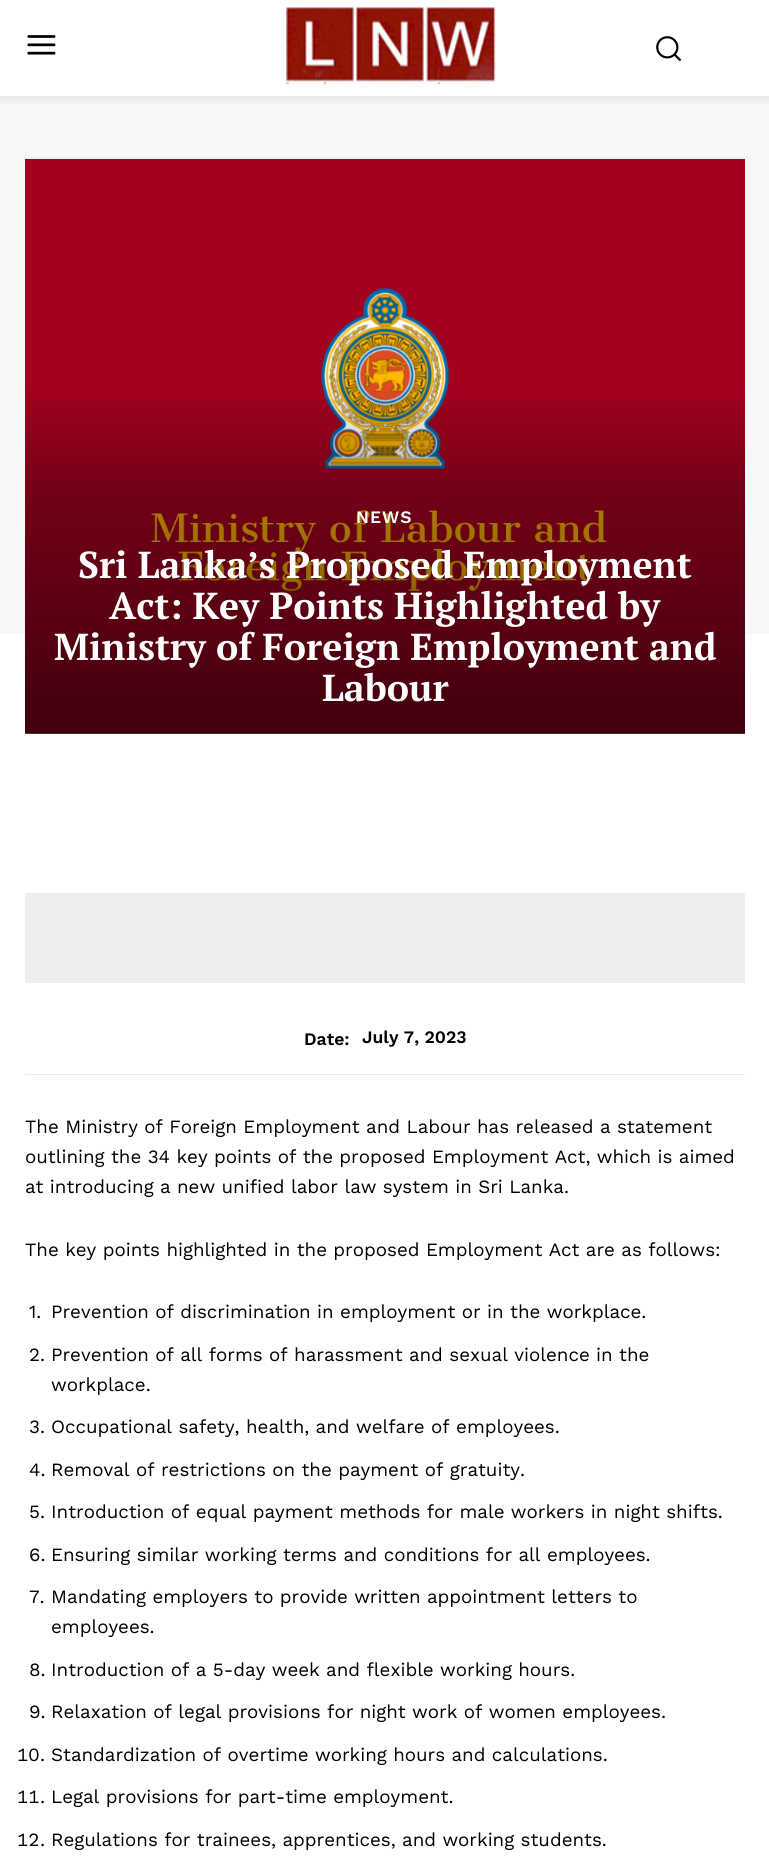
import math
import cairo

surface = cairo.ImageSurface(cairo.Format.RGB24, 769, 1862)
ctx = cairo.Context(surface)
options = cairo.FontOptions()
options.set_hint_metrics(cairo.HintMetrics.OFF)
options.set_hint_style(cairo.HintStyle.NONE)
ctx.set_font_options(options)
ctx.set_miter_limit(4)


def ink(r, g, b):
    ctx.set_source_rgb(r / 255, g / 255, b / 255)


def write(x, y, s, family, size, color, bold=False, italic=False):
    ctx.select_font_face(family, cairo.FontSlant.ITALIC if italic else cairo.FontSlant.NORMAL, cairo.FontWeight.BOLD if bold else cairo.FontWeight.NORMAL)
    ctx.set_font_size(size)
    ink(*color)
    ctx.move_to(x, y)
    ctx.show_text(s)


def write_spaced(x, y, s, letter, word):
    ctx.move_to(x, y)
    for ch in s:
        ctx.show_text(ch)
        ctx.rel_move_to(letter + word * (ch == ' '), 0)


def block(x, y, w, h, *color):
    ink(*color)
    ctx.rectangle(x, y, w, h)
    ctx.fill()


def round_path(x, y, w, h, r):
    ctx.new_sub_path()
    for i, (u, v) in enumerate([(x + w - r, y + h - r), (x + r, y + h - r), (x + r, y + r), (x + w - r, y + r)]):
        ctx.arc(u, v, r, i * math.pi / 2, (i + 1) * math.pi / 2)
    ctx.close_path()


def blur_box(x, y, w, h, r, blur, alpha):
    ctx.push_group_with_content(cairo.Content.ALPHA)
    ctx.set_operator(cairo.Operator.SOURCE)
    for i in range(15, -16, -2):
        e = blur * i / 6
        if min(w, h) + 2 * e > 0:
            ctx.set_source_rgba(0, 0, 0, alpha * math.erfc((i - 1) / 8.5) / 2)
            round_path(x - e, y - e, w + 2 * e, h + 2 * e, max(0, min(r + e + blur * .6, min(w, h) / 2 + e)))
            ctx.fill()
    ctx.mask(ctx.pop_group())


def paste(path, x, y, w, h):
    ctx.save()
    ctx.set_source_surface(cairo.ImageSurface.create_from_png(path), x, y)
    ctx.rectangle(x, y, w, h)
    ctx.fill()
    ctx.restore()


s1 = dict(family="PT Serif", size=37.5, color=(255, 255, 255), bold=True)
s2 = dict(family="Work Sans SemiBold", size=17.5, color=(0, 0, 0))
s3 = dict(family="Work Sans", size=18.75, color=(0, 0, 0))
s4 = dict(family="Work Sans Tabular", size=18.75, color=(0, 0, 0))

ink(255, 255, 255)
ctx.paint()
paste("pic1.png", 27, 35, 29, 20)
paste("pic2.png", 286, 7, 210, 78)
paste("pic3.png", 656, 36, 26, 26)
block(0, 96, 769, 538, 247, 247, 247)
ctx.save()
ctx.rectangle(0, 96, 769, 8)
ctx.clip()
ink(0, 0, 0)
blur_box(0, 3, 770, 96, 0, 6, 0.09)
ctx.restore()
paste("pic4.png", 25, 158, 720, 576)
gradient = cairo.LinearGradient(385, 734, 385, 159)
gradient.add_color_stop_rgba(0, 0, 0, 0, 0.6)
gradient.add_color_stop_rgba(0.42, 0, 0, 0, 0.3)
gradient.add_color_stop_rgba(0.61, 0, 0, 0, 0)
gradient.add_color_stop_rgba(1, 0, 0, 0, 0)
ctx.set_source(gradient)
ctx.rectangle(25, 391, 720, 343)
ctx.fill()
ctx.select_font_face("Work Sans SemiBold")
ctx.set_font_size(17.5)
ink(255, 255, 255)
write_spaced(356, 523, "NEWS", 1, 0)
write(78, 578, "Sri Lanka’s Proposed Employment", **s1)
write(109, 619, "Act: Key Points Highlighted by", **s1)
write(54, 660, "Ministry of Foreign Employment and", **s1)
write(322, 701, "Labour", **s1)
block(25, 893, 720, 90, 238, 238, 238)
write(304, 1045, "Date:", **s2)
write(362, 1043, "July 7, 2023", **s2)
block(25, 1074, 720, 1, 234, 234, 234)
write(25, 1133, "The Ministry of Foreign Employment and Labour has released a statement", **s3)
write(25, 1163, "outlining the 34 key points of the proposed Employment Act, which is aimed", **s3)
write(25, 1193, "at introducing a new unified labor law system in Sri Lanka.", **s3)
write(25, 1256, "The key points highlighted in the proposed Employment Act are as follows:", **s3)
write(29, 1318, "1.", **s3)
write(51, 1318, "Prevention of discrimination in employment or in the workplace.", **s3)
write(29, 1361, "2.", **s3)
write(51, 1361, "Prevention of all forms of harassment and sexual violence in the", **s3)
write(51, 1391, "workplace.", **s3)
write(29, 1433, "3.", **s3)
write(51, 1433, "Occupational safety, health, and welfare of employees.", **s3)
write(29, 1476, "4.", **s3)
write(51, 1476, "Removal of restrictions on the payment of gratuity.", **s3)
write(29, 1518, "5.", **s3)
write(51, 1518, "Introduction of equal payment methods for male workers in night shifts.", **s3)
write(29, 1561, "6.", **s3)
write(51, 1561, "Ensuring similar working terms and conditions for all employees.", **s3)
write(29, 1603, "7.", **s3)
write(51, 1603, "Mandating employers to provide written appointment letters to", **s3)
write(51, 1633, "employees.", **s3)
write(29, 1676, "8.", **s3)
write(51, 1676, "Introduction of a 5-day week and flexible working hours.", **s3)
write(29, 1718, "9.", **s3)
write(51, 1718, "Relaxation of legal provisions for night work of women employees.", **s3)
write(17, 1761, "10.", **s4)
write(51, 1761, "Standardization of overtime working hours and calculations.", **s3)
write(17, 1803, "11.", **s4)
write(51, 1803, "Legal provisions for part-time employment.", **s3)
write(17, 1846, "12.", **s4)
write(51, 1846, "Regulations for trainees, apprentices, and working students.", **s3)
surface.write_to_png("screenshot.png")
